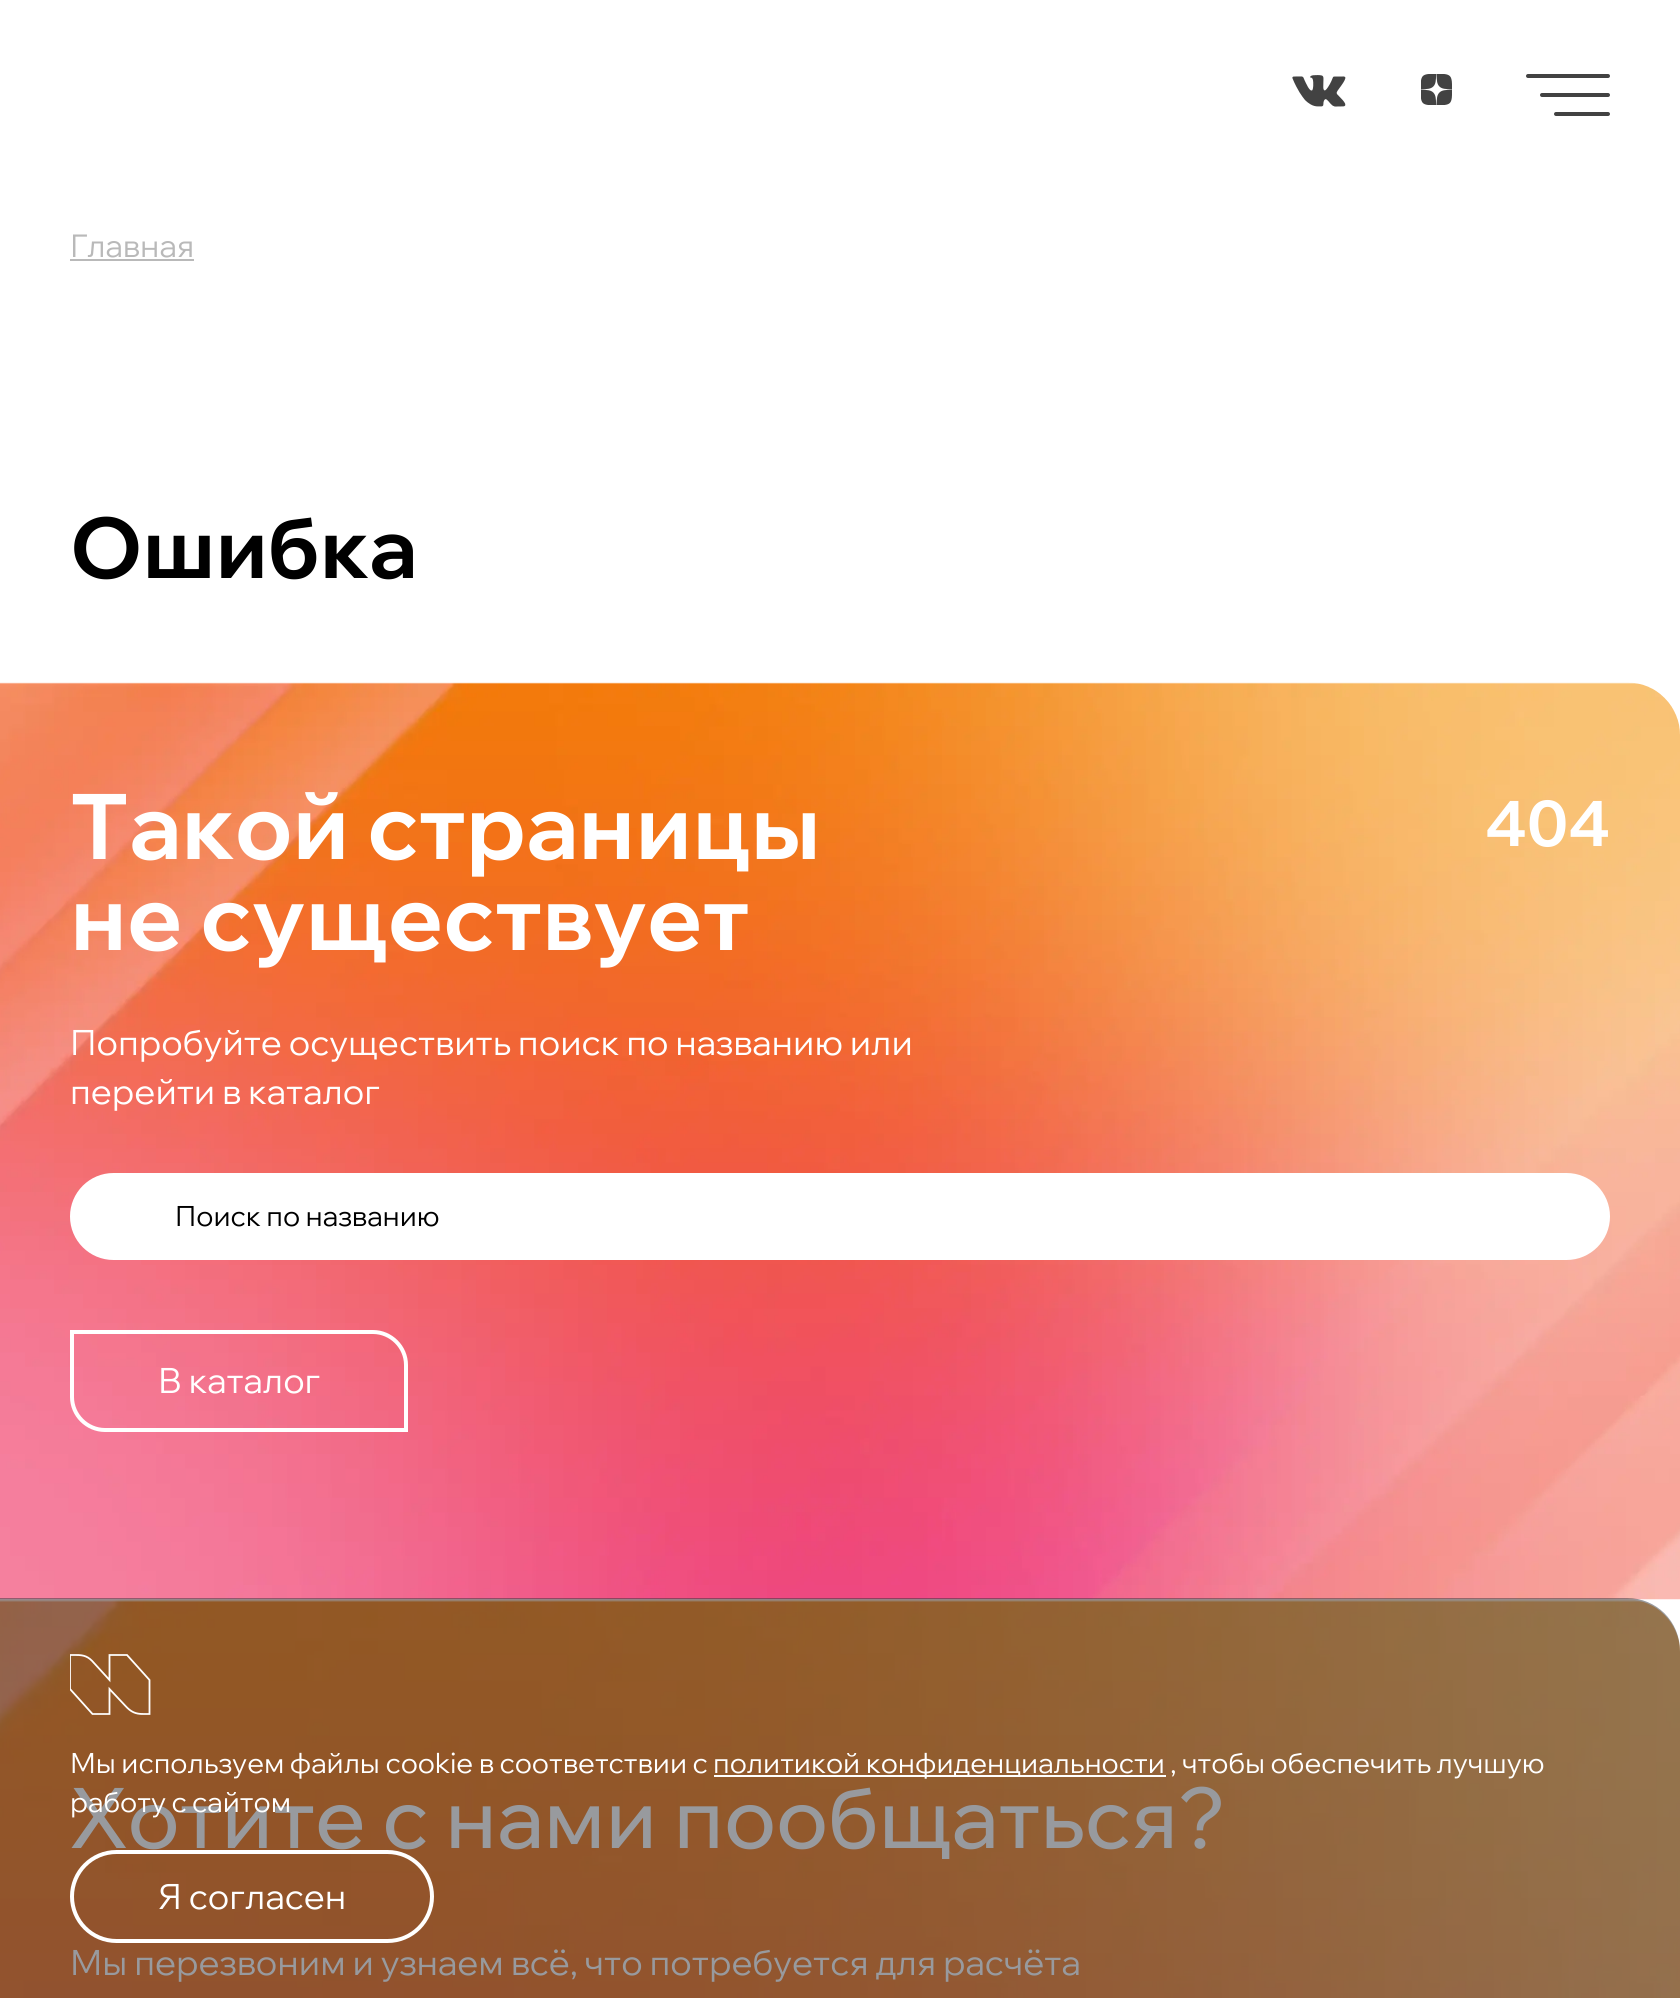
import math
import cairo

surface = cairo.ImageSurface(cairo.Format.RGB24, 1680, 1998)
ctx = cairo.Context(surface)
options = cairo.FontOptions()
options.set_hint_metrics(cairo.HintMetrics.OFF)
options.set_hint_style(cairo.HintStyle.NONE)
ctx.set_font_options(options)
ctx.set_miter_limit(4)


def ink(r, g, b):
    ctx.set_source_rgb(r / 255, g / 255, b / 255)


def write(x, y, s, family, size, color, bold=False, italic=False):
    ctx.select_font_face(family, cairo.FontSlant.ITALIC if italic else cairo.FontSlant.NORMAL, cairo.FontWeight.BOLD if bold else cairo.FontWeight.NORMAL)
    ctx.set_font_size(size)
    ink(*color)
    ctx.move_to(x, y)
    ctx.show_text(s)


def block(x, y, w, h, *color):
    ink(*color)
    ctx.rectangle(x, y, w, h)
    ctx.fill()


def round_path(x, y, w, h, r):
    ctx.new_sub_path()
    for i, (u, v) in enumerate([(x + w - r, y + h - r), (x + r, y + h - r), (x + r, y + r), (x + w - r, y + r)]):
        ctx.arc(u, v, r, i * math.pi / 2, (i + 1) * math.pi / 2)
    ctx.close_path()


def paste(path, x, y, w, h):
    ctx.save()
    ctx.set_source_surface(cairo.ImageSurface.create_from_png(path), x, y)
    ctx.rectangle(x, y, w, h)
    ctx.fill()
    ctx.restore()


s1 = dict(family="Wix Madefor Display", size=31.5, color=(185, 185, 185))
s2 = dict(family="Wix Madefor Display", size=84, color=(0, 0, 0), bold=True)
s3 = dict(family="Wix Madefor Display", size=91, color=(255, 255, 255), bold=True)
s4 = dict(family="Wix Madefor Display", size=63, color=(255, 255, 255), bold=True)
s5 = dict(family="Wix Madefor Display", size=35, color=(255, 255, 255))
s6 = dict(family="Wix Madefor Display", size=28, color=(0, 0, 0))
s7 = dict(family="Wix Madefor Display Medium", size=84, color=(255, 255, 255))
s8 = dict(family="Wix Madefor Display", size=28, color=(255, 255, 255))

ink(255, 255, 255)
ctx.paint()
paste("pic1.png", 1292, 75, 54, 32)
paste("pic2.png", 1421, 74, 31, 31)
ink(66, 66, 66)
round_path(1526, 74, 84, 4, 2)
ctx.fill()
round_path(1540, 93, 70, 4, 2)
ctx.fill()
round_path(1554, 112, 56, 4, 2)
ctx.fill()
write(70, 257, "Главная", **s1)
block(70, 259, 124, 2, 185, 185, 185)
write(70, 578, "Ошибка", **s2)
paste("pic3.png", 0, 682, 1680, 918)
write(70, 859, "Такой страницы", **s3)
write(70, 950, "не существует", **s3)
write(1485, 846, "404", **s4)
write(70, 1055, "Попробуйте осуществить поиск по названию или", **s5)
write(70, 1104, "перейти в каталог", **s5)
round_path(70, 1173, 1540, 87, 43.5)
ctx.fill()
write(175, 1226, "Поиск по названию", **s6)
ctx.new_path()
ctx.move_to(72, 1332)
ctx.line_to(373, 1332)
ctx.curve_to(391, 1332, 406, 1347, 406, 1365)
ctx.line_to(406, 1430)
ctx.line_to(105, 1430)
ctx.curve_to(87, 1430, 72, 1415, 72, 1397)
ctx.close_path()
ink(255, 255, 255)
ctx.set_line_width(4)
ctx.stroke()
write(158, 1393, "В каталог", **s5)
paste("pic4.png", 0, 1599, 1680, 399)
write(70, 1848, "Хотите с нами пообщаться?", **s7)
write(70, 1975, "Мы перезвоним и узнаем всё, что потребуется для расчёта", **s5)
ctx.set_source_rgba(0.196, 0.216, 0.247, 0.5)
ctx.new_path()
ctx.move_to(0, 1598)
ctx.line_to(1627, 1598)
ctx.curve_to(1656.5, 1598, 1680, 1621.5, 1680, 1651)
ctx.line_to(1680, 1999)
ctx.line_to(0, 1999)
ctx.close_path()
ctx.fill()
ctx.save()
ctx.rectangle(70, 1654, 81, 61)
ctx.clip()
ctx.new_path()
ctx.move_to(149.5, 1714)
ctx.line_to(143, 1714)
ctx.curve_to(135.5, 1714, 131, 1712, 125.5, 1706)
ctx.line_to(109.5, 1689)
ctx.line_to(109.5, 1714)
ctx.line_to(92.5, 1714)
ctx.line_to(70, 1689)
ctx.line_to(70, 1655)
ctx.line_to(76.5, 1655)
ctx.curve_to(84, 1655, 88.5, 1656.5, 94, 1663)
ctx.line_to(109.5, 1680)
ctx.line_to(109.5, 1655)
ctx.line_to(127, 1655)
ctx.line_to(149.5, 1680)
ctx.close_path()
ink(255, 255, 255)
ctx.set_line_width(1.8)
ctx.stroke()
ctx.restore()
write(70, 1773, "Мы используем файлы cookie в соответствии с", **s8)
block(714, 1775, 452, 2, 255, 255, 255)
write(713, 1773, "политикой конфиденциальности , чтобы обеспечить лучшую", **s8)
write(70, 1812, "работу с сайтом", **s8)
round_path(72, 1852, 360, 89, 44.5)
ctx.stroke()
write(158, 1909, "Я согласен", **s5)
surface.write_to_png("screenshot.png")
